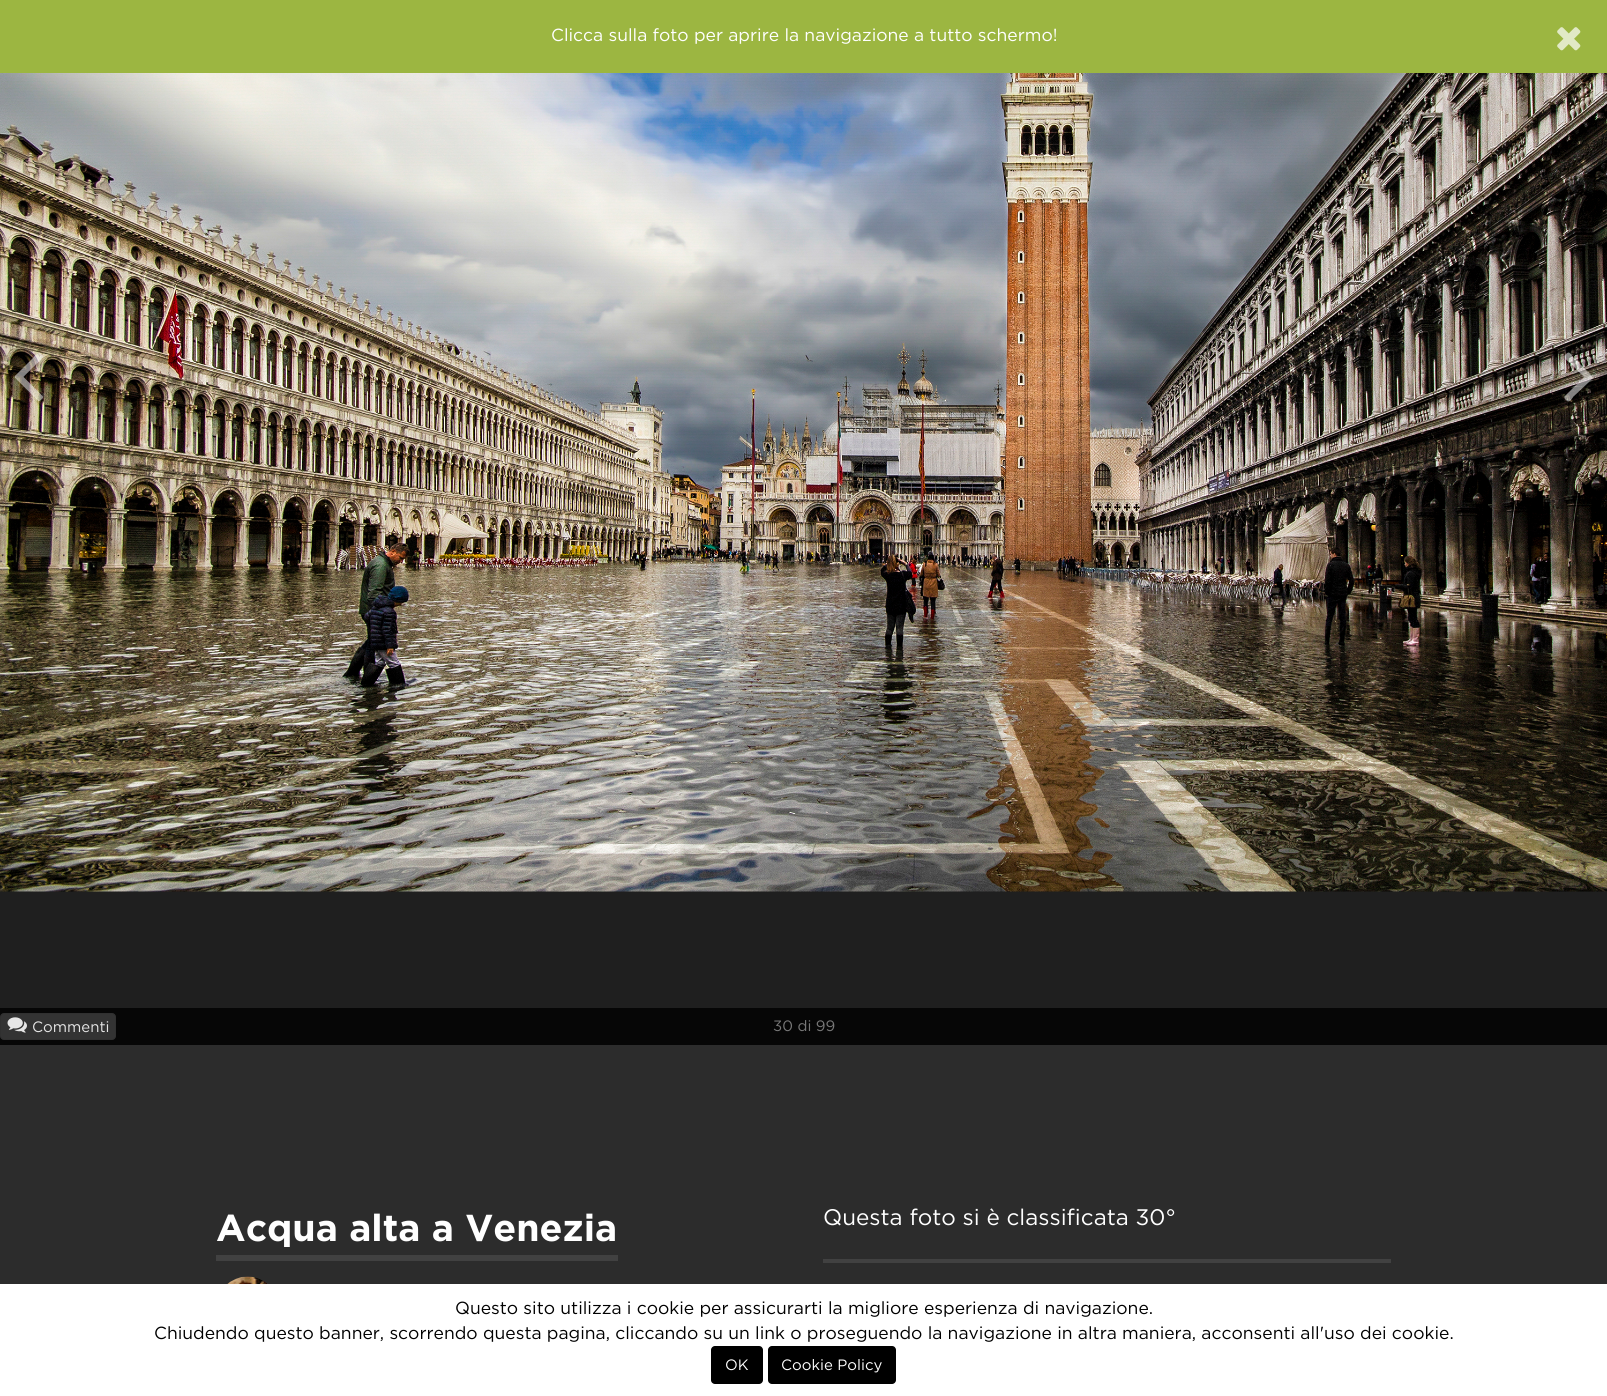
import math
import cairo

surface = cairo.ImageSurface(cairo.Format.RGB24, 1607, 1396)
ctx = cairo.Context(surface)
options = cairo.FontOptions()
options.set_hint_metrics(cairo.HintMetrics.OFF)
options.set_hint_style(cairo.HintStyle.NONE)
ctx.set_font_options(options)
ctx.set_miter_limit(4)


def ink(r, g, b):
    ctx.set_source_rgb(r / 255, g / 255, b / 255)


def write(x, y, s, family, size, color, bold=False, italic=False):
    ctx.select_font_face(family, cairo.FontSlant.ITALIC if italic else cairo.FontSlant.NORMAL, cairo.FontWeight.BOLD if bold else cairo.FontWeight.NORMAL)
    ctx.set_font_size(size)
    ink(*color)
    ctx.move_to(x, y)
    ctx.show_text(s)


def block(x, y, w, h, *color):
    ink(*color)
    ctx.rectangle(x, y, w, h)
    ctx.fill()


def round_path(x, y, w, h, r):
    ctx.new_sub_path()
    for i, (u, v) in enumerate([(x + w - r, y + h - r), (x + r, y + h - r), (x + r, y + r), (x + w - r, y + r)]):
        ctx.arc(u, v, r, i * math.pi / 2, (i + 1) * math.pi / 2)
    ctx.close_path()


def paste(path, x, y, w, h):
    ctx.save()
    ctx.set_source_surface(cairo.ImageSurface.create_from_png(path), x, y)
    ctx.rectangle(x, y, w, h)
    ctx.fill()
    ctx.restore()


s1 = dict(family="Gotham", size=17.5, color=(255, 255, 255))
s2 = dict(family="Gotham", size=15, color=(230, 230, 230))
s3 = dict(family="Gotham", size=15, color=(119, 119, 119))
s4 = dict(family="Gotham", size=37.5, color=(255, 255, 255), bold=True)
s5 = dict(family="Gotham", size=22.5, color=(255, 255, 255))
s6 = dict(family="Gotham", size=17.5, color=(0, 0, 0))
s7 = dict(family="Gotham", size=15, color=(255, 255, 255))

ink(44, 44, 44)
ctx.paint()
block(0, 0, 1607, 73, 156, 182, 65)
write(551, 41, "Clicca sulla foto per aprire la navigazione a tutto schermo!", **s1)
paste("pic1.png", 1557, 27, 24, 24)
block(0, 891, 1607, 117, 31, 31, 31)
paste("pic2.png", 0, 73, 1607, 819)
paste("pic3.png", 14, 352, 30, 50)
ctx.set_source_rgba(1, 1, 1, 0.5)
ctx.new_path()
ctx.move_to(1592, 376)
ctx.curve_to(1594, 378, 1589, 382, 1589, 382)
ctx.line_to(1573, 397)
ctx.curve_to(1573, 397, 1570, 403, 1567, 401)
ctx.curve_to(1566, 400, 1563, 398, 1565, 396)
ctx.line_to(1584, 377)
ctx.line_to(1571, 364)
ctx.curve_to(1567, 360, 1562, 358, 1566, 354)
ctx.curve_to(1569, 351, 1570, 353, 1573, 357)
ctx.close_path()
ctx.fill()
block(0, 1008, 1607, 37, 6, 6, 6)
ink(51, 51, 51)
round_path(0.5, 1013.5, 115, 26, 3.5)
ctx.fill_preserve()
ink(48, 48, 48)
ctx.set_line_width(1)
ctx.stroke()
paste("pic4.png", 7, 1017, 20, 16)
write(32, 1032, "Commenti", **s2)
write(773, 1031, "30 di 99", **s3)
write(216, 1241, "Acqua alta a Venezia", **s4)
block(216, 1255, 402, 6, 65, 65, 65)
paste("pic5.png", 227, 1276, 41, 8)
write(823, 1225, "Questa foto si è classificata 30°", **s5)
block(823, 1259, 568, 4, 65, 65, 65)
block(0, 1284, 1607, 112, 255, 255, 255)
write(455, 1314, "Questo sito utilizza i cookie per assicurarti la migliore esperienza di navigazione.", **s6)
write(154, 1339, "Chiudendo questo banner, scorrendo questa pagina, cliccando su un link o proseguendo la navigazione in altra maniera, acconsenti all'uso dei cookie.", **s6)
round_path(711, 1346, 52, 38, 4)
ctx.fill()
write(725, 1370, "OK", **s7)
ink(0, 0, 0)
round_path(768, 1346, 128, 38, 4)
ctx.fill()
write(781, 1370, "Cookie Policy", **s7)
surface.write_to_png("screenshot.png")
